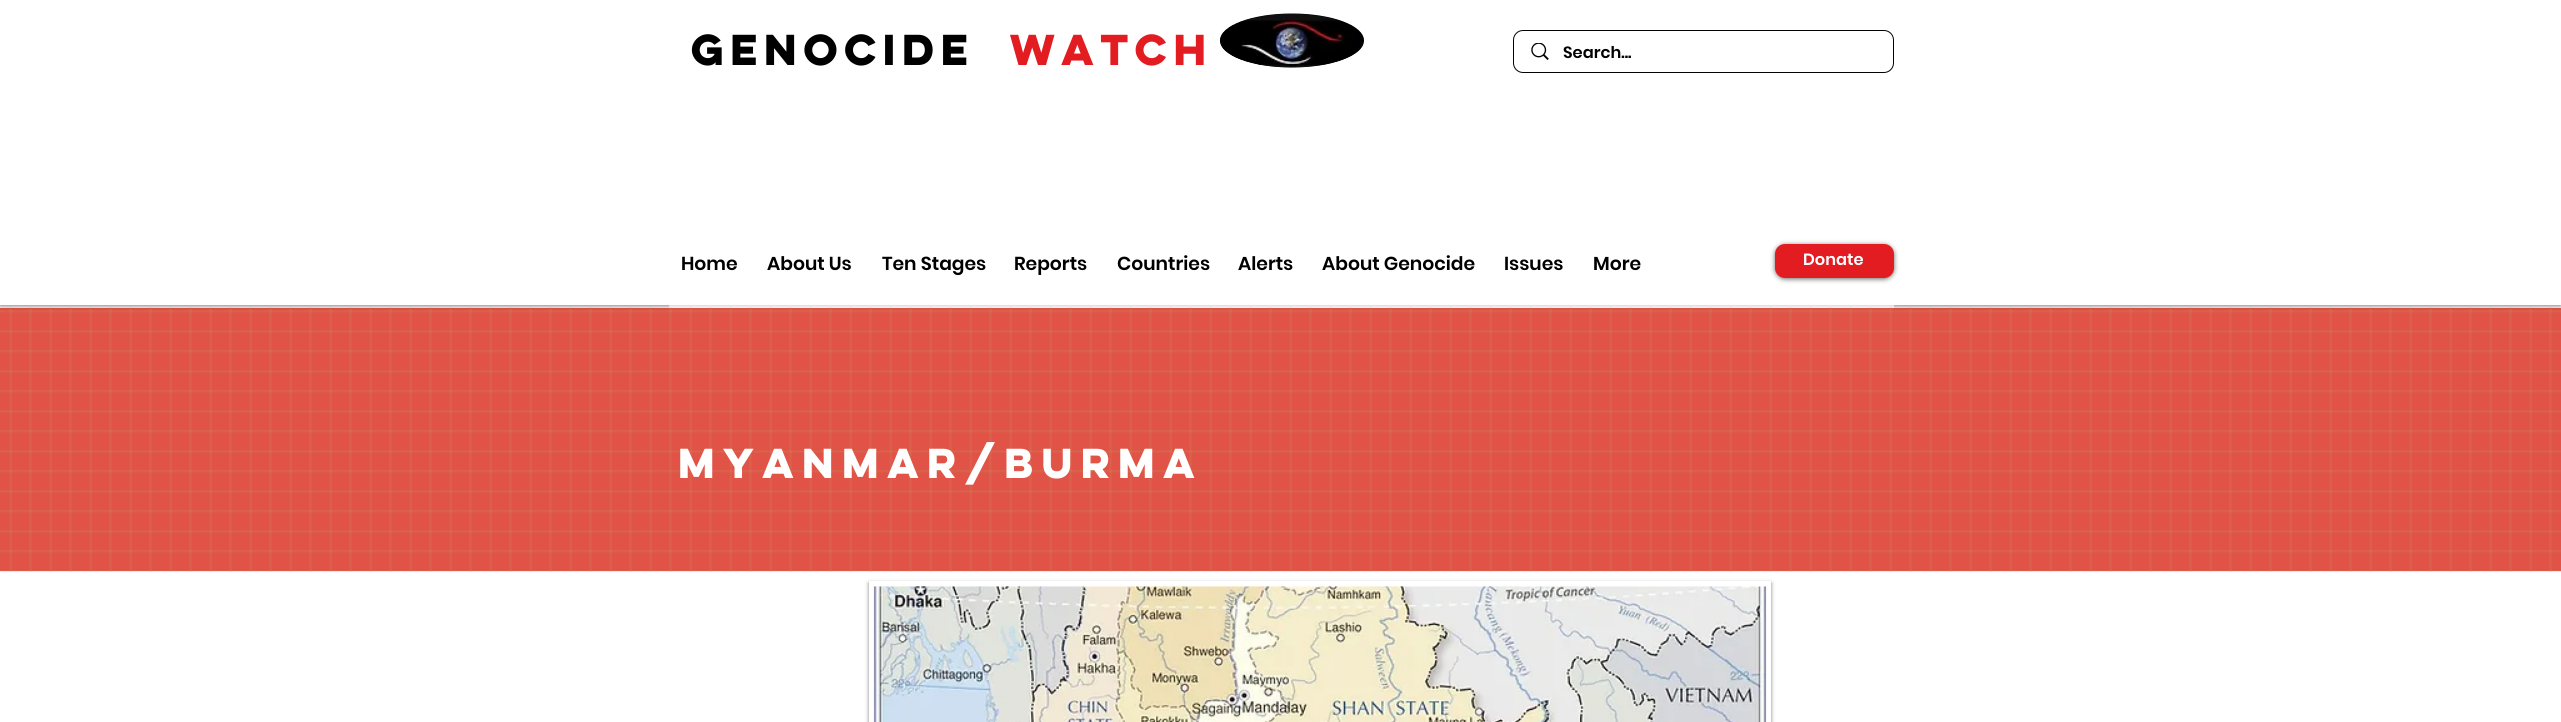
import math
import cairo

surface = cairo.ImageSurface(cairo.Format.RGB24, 2561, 722)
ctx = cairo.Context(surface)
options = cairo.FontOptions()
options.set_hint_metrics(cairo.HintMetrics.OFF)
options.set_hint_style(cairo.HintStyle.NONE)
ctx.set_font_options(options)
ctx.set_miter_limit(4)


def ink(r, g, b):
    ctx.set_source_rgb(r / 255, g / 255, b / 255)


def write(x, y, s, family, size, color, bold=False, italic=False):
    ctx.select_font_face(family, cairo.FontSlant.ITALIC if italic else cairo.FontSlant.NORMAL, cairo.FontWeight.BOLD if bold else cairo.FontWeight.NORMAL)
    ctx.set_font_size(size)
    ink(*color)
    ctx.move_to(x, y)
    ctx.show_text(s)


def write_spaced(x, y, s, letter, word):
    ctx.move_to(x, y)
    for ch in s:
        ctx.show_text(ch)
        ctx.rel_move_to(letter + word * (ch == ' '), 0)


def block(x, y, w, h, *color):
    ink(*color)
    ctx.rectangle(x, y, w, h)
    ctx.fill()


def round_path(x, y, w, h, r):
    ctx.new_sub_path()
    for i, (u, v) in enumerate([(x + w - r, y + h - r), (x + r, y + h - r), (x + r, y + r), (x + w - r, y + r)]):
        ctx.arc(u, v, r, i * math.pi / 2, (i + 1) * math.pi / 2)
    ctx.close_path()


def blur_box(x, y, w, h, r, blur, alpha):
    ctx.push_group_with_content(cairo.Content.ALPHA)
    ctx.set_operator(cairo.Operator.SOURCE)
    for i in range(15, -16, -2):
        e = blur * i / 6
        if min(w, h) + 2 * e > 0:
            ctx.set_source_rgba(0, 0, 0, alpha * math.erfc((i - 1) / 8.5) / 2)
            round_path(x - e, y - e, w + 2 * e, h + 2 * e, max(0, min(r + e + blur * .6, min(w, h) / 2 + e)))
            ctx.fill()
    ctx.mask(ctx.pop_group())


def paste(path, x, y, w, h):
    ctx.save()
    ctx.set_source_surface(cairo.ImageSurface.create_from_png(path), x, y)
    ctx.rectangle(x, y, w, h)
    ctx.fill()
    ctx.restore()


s1 = dict(family="Poppins SemiBold", size=16.25, color=(0, 0, 0))
s2 = dict(family="Poppins SemiBold", size=18.75, color=(0, 0, 0))
s3 = dict(family="Poppins SemiBold", size=16.25, color=(255, 255, 255))
s4 = dict(family="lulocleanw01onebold", size=37.5, color=(255, 255, 255), bold=True)

ink(255, 255, 255)
ctx.paint()
ctx.save()
ctx.rectangle(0, 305, 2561, 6)
ctx.clip()
ink(0, 0, 0)
blur_box(0, 0, 2561, 305, 0, 3, 0.7)
ctx.restore()
ctx.select_font_face("lulocleanw01onebold", cairo.FontSlant.NORMAL, cairo.FontWeight.BOLD)
ctx.set_font_size(38.75)
ink(0, 0, 0)
write_spaced(691, 65, "GENOCIDE", -2, 0)
ink(226, 28, 33)
write_spaced(1010, 65, "WATCH", -2, 0)
ink(3, 3, 3)
ctx.new_path()
ctx.move_to(1292, 13.5)
ctx.curve_to(1332, 13.5, 1364, 25.5, 1364, 40.5)
ctx.curve_to(1364, 55.5, 1332, 67.5, 1292, 67.5)
ctx.curve_to(1252, 67.5, 1220, 55.5, 1220, 40.5)
ctx.curve_to(1220, 25.5, 1252, 13.5, 1292, 13.5)
ctx.close_path()
ctx.fill()
paste("pic1.png", 1220, 14, 144, 54)
round_path(1513.5, 30.5, 380, 42, 9.5)
ctx.set_line_width(1)
ctx.stroke()
paste("pic2.png", 1531, 43, 18, 17)
write(1563, 58, "Search...", **s1)
write(681, 270, "Home", **s2)
write(767, 270, "About Us", **s2)
write(882, 270, "Ten Stages", **s2)
write(1014, 270, "Reports", **s2)
write(1117, 270, "Countries", **s2)
write(1238, 270, "Alerts", **s2)
write(1322, 270, "About Genocide", **s2)
write(1504, 270, "Issues", **s2)
write(1593, 270, "More", **s2)
ink(0, 0, 0)
blur_box(1775, 245, 119, 34, 10, 2.5, 0.6)
ink(226, 28, 33)
round_path(1775, 244, 119, 34, 10)
ctx.fill()
write(1803, 265, "Donate", **s3)
ctx.set_source_rgba(1, 1, 1, 0.6)
ctx.rectangle(669, 305, 1225, 6)
ctx.fill()
ctx.set_source_rgba(0.831, 0.078, 0.008, 0.73)
ctx.rectangle(0, 308, 2561, 263)
ctx.fill()
paste("pic3.png", 0, 307, 2561, 265)
write(678, 478, "Myanmar/Burma", **s4)
ink(0, 0, 0)
blur_box(869, 583, 902, 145, 0, 2, 0.5)
block(869, 581, 902, 141, 255, 255, 255)
paste("pic4.png", 873, 586, 894, 136)
surface.write_to_png("screenshot.png")
